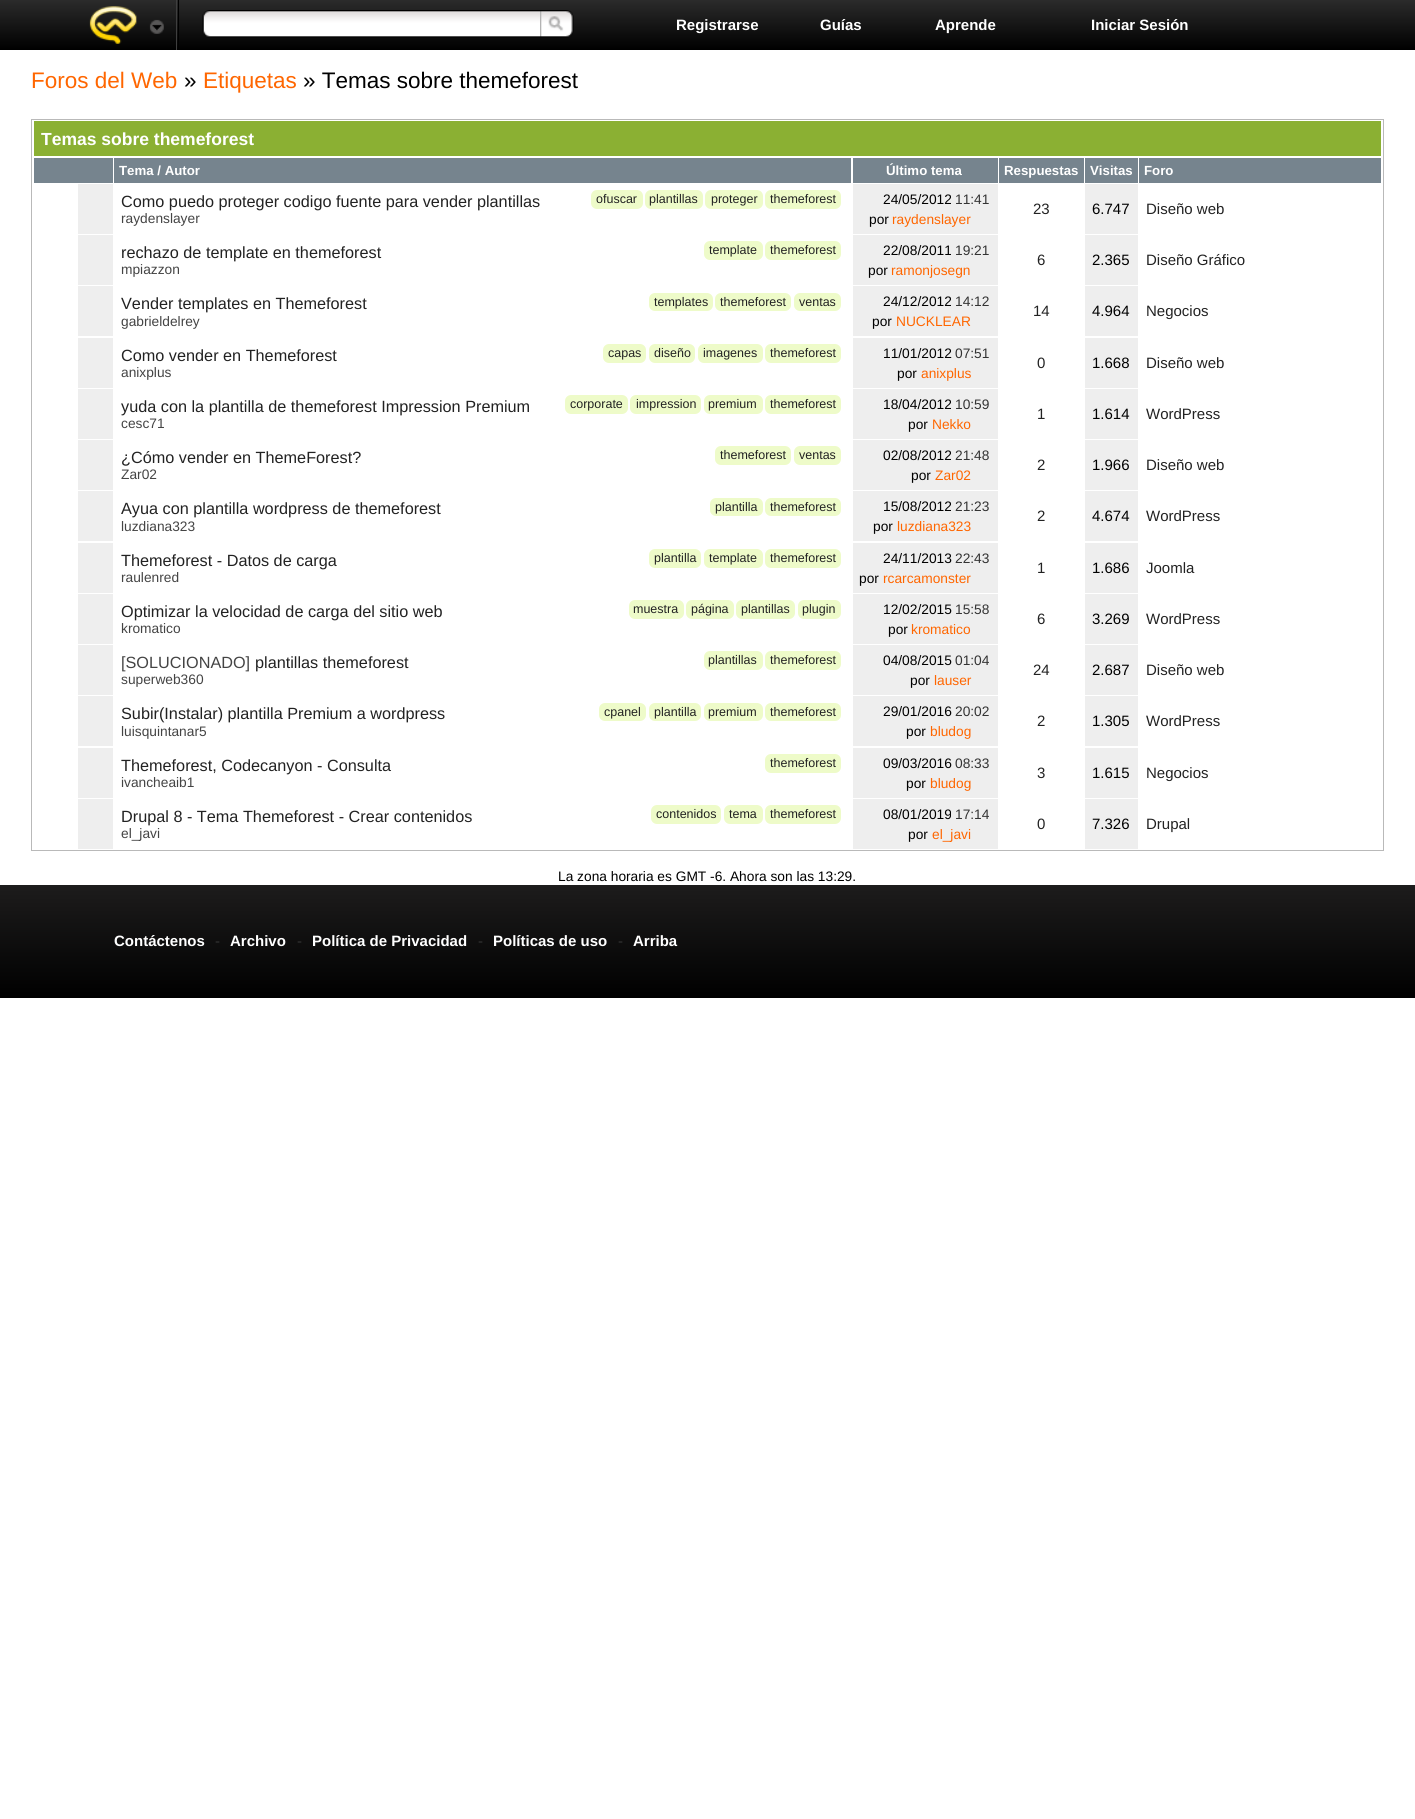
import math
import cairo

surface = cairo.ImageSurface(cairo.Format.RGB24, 1415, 1819)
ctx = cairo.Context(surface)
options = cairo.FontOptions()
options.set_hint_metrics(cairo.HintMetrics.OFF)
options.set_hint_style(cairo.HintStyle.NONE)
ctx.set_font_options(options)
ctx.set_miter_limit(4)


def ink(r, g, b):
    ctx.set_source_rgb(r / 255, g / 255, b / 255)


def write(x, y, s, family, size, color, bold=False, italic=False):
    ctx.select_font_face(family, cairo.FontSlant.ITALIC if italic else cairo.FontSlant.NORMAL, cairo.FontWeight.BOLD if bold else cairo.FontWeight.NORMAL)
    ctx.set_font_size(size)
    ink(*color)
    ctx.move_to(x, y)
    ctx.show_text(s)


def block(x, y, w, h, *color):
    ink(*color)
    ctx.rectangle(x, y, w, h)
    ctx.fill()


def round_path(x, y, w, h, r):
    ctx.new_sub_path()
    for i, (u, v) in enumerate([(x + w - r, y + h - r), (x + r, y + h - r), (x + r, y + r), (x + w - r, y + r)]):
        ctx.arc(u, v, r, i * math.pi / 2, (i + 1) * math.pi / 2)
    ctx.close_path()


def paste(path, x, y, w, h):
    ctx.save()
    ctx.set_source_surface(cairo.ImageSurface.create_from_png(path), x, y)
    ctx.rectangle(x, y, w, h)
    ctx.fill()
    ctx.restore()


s1 = dict(family="Liberation Sans", size=15, color=(255, 255, 255), bold=True)
s2 = dict(family="Liberation Sans", size=22.5, color=(255, 102, 0))
s3 = dict(family="Liberation Sans", size=22.5, color=(0, 0, 0))
s4 = dict(family="Liberation Sans", size=17.5, color=(255, 255, 255), bold=True)
s5 = dict(family="Liberation Sans", size=13.25, color=(255, 255, 255), bold=True)
s6 = dict(family="Liberation Sans", size=16.25, color=(34, 34, 34))
s7 = dict(family="Liberation Sans", size=12.5, color=(34, 34, 34))
s8 = dict(family="Liberation Sans", size=13.75, color=(68, 68, 68))
s9 = dict(family="Liberation Sans", size=13.75, color=(0, 0, 0))
s10 = dict(family="Liberation Sans", size=13.75, color=(51, 51, 51))
s11 = dict(family="Liberation Sans", size=13.75, color=(255, 102, 0))
s12 = dict(family="Liberation Sans", size=15, color=(34, 34, 34))
s13 = dict(family="Liberation Sans", size=15, color=(0, 0, 0))
s14 = dict(family="Liberation Sans", size=16.25, color=(68, 68, 68))
s15 = dict(family="Liberation Sans", size=15, color=(51, 51, 51))

ink(255, 255, 255)
ctx.paint()
gradient = cairo.LinearGradient(0, 0, 0, 50)
gradient.add_color_stop_rgba(0, 0.169, 0.169, 0.169, 1)
gradient.add_color_stop_rgba(1, 0, 0, 0, 1)
ctx.set_source(gradient)
ctx.rectangle(0, 0, 1415, 50)
ctx.fill()
block(178, 0, 1, 50, 0, 0, 0)
block(176, 0, 1, 50, 63, 63, 63)
paste("pic1.png", 89, 6, 75, 38)
paste("pic2.png", 202, 10, 338, 28)
paste("pic3.png", 540, 10, 34, 28)
write(676, 30, "Registrarse", **s1)
write(820, 30, "Guías", **s1)
write(935, 30, "Aprende", **s1)
write(1091, 30, "Iniciar Sesión", **s1)
write(31, 88, "Foros del Web", **s2)
write(184, 88, "»", **s3)
write(203, 88, "Etiquetas", **s2)
write(303, 88, "» Temas sobre themeforest", **s3)
ctx.rectangle(31.5, 119.5, 1352, 731)
ink(185, 185, 185)
ctx.set_line_width(1)
ctx.stroke()
block(34, 121, 1347, 35, 139, 176, 51)
write(41, 145, "Temas sobre themeforest", **s4)
block(34, 158, 79, 25, 118, 132, 142)
block(114, 158, 737, 25, 118, 132, 142)
write(119, 175, "Tema / Autor", **s5)
block(853, 158, 145, 25, 118, 132, 142)
write(886, 175, "Último tema", **s5)
block(999, 158, 85, 25, 118, 132, 142)
write(1004, 175, "Respuestas", **s5)
block(1085, 158, 53, 25, 118, 132, 142)
write(1090, 175, "Visitas", **s5)
block(1139, 158, 242, 25, 118, 132, 142)
write(1144, 175, "Foro", **s5)
block(78, 184, 35, 50, 238, 238, 238)
write(121, 207, "Como puedo proteger codigo fuente para vender plantillas", **s6)
ink(238, 251, 201)
round_path(591, 190, 52, 19, 6)
ctx.fill()
write(596, 203, "ofuscar", **s7)
ink(238, 251, 201)
round_path(645, 190, 58, 19, 6)
ctx.fill()
write(649, 203, "plantillas", **s7)
ink(238, 251, 201)
round_path(705, 190, 58, 19, 6)
ctx.fill()
write(711, 203, "proteger", **s7)
ink(238, 251, 201)
round_path(765, 190, 76, 19, 6)
ctx.fill()
write(770, 203, "themeforest", **s7)
write(121, 223, "raydenslayer", **s8)
block(853, 184, 145, 50, 238, 238, 238)
write(883, 204, "24/05/2012", **s9)
write(955, 204, "11:41", **s10)
write(869, 224, "por", **s9)
write(892, 224, "raydenslayer", **s11)
write(1033, 214, "23", **s12)
block(1085, 184, 53, 50, 238, 238, 238)
write(1092, 214, "6.747", **s13)
write(1146, 214, "Diseño web", **s12)
block(78, 235, 35, 50, 238, 238, 238)
write(121, 258, "rechazo de template en themeforest", **s6)
ink(238, 251, 201)
round_path(704, 241, 59, 19, 6)
ctx.fill()
write(709, 254, "template", **s7)
ink(238, 251, 201)
round_path(765, 241, 76, 19, 6)
ctx.fill()
write(770, 254, "themeforest", **s7)
write(121, 274, "mpiazzon", **s8)
block(853, 235, 145, 50, 238, 238, 238)
write(883, 255, "22/08/2011", **s9)
write(955, 255, "19:21", **s10)
write(868, 275, "por", **s9)
write(891, 275, "ramonjosegn", **s11)
write(1037, 265, "6", **s12)
block(1085, 235, 53, 50, 238, 238, 238)
write(1092, 265, "2.365", **s13)
write(1146, 265, "Diseño Gráfico", **s12)
block(78, 286, 35, 50, 238, 238, 238)
write(121, 309, "Vender templates en Themeforest", **s6)
ink(238, 251, 201)
round_path(649, 293, 64, 18, 6)
ctx.fill()
write(654, 306, "templates", **s7)
ink(238, 251, 201)
round_path(715, 293, 76, 18, 6)
ctx.fill()
write(720, 306, "themeforest", **s7)
ink(238, 251, 201)
round_path(794, 293, 47, 18, 6)
ctx.fill()
write(799, 306, "ventas", **s7)
write(121, 326, "gabrieldelrey", **s8)
block(853, 286, 145, 50, 238, 238, 238)
write(883, 306, "24/12/2012", **s9)
write(955, 306, "14:12", **s10)
write(872, 326, "por", **s9)
write(896, 326, "NUCKLEAR", **s11)
write(1033, 316, "14", **s12)
block(1085, 286, 53, 50, 238, 238, 238)
write(1092, 316, "4.964", **s13)
write(1146, 316, "Negocios", **s12)
block(78, 338, 35, 50, 238, 238, 238)
write(121, 361, "Como vender en Themeforest", **s6)
ink(238, 251, 201)
round_path(603, 344, 43, 19, 6)
ctx.fill()
write(608, 357, "capas", **s7)
ink(238, 251, 201)
round_path(649, 344, 46, 19, 6)
ctx.fill()
write(654, 357, "diseño", **s7)
ink(238, 251, 201)
round_path(698, 344, 65, 19, 6)
ctx.fill()
write(703, 357, "imagenes", **s7)
ink(238, 251, 201)
round_path(765, 344, 76, 19, 6)
ctx.fill()
write(770, 357, "themeforest", **s7)
write(121, 377, "anixplus", **s8)
block(853, 338, 145, 50, 238, 238, 238)
write(883, 358, "11/01/2012", **s9)
write(955, 358, "07:51", **s10)
write(897, 378, "por", **s9)
write(921, 378, "anixplus", **s11)
write(1037, 368, "0", **s12)
block(1085, 338, 53, 50, 238, 238, 238)
write(1092, 368, "1.668", **s13)
write(1146, 368, "Diseño web", **s12)
block(78, 389, 35, 50, 238, 238, 238)
write(121, 412, "yuda con la plantilla de themeforest Impression Premium", **s6)
ink(238, 251, 201)
round_path(565, 395, 63, 19, 6)
ctx.fill()
write(570, 408, "corporate", **s7)
ink(238, 251, 201)
round_path(630, 395, 71, 19, 6)
ctx.fill()
write(636, 408, "impression", **s7)
ink(238, 251, 201)
round_path(704, 395, 59, 19, 6)
ctx.fill()
write(708, 408, "premium", **s7)
ink(238, 251, 201)
round_path(765, 395, 76, 19, 6)
ctx.fill()
write(770, 408, "themeforest", **s7)
write(121, 428, "cesc71", **s8)
block(853, 389, 145, 50, 238, 238, 238)
write(883, 409, "18/04/2012", **s9)
write(955, 409, "10:59", **s10)
write(908, 429, "por", **s9)
write(932, 429, "Nekko", **s11)
write(1037, 419, "1", **s12)
block(1085, 389, 53, 50, 238, 238, 238)
write(1092, 419, "1.614", **s13)
write(1146, 419, "WordPress", **s12)
block(78, 440, 35, 50, 238, 238, 238)
write(121, 463, "¿Cómo vender en ThemeForest?", **s6)
ink(238, 251, 201)
round_path(715, 446, 76, 19, 6)
ctx.fill()
write(720, 459, "themeforest", **s7)
ink(238, 251, 201)
round_path(794, 446, 47, 19, 6)
ctx.fill()
write(799, 459, "ventas", **s7)
write(121, 479, "Zar02", **s8)
block(853, 440, 145, 50, 238, 238, 238)
write(883, 460, "02/08/2012", **s9)
write(955, 460, "21:48", **s10)
write(911, 480, "por", **s9)
write(935, 480, "Zar02", **s11)
write(1037, 470, "2", **s12)
block(1085, 440, 53, 50, 238, 238, 238)
write(1092, 470, "1.966", **s13)
write(1146, 470, "Diseño web", **s12)
block(78, 491, 35, 50, 238, 238, 238)
write(121, 514, "Ayua con plantilla wordpress de themeforest", **s6)
ink(238, 251, 201)
round_path(710, 498, 53, 18, 6)
ctx.fill()
write(715, 511, "plantilla", **s7)
ink(238, 251, 201)
round_path(765, 498, 76, 18, 6)
ctx.fill()
write(770, 511, "themeforest", **s7)
write(121, 531, "luzdiana323", **s8)
block(853, 491, 145, 50, 238, 238, 238)
write(883, 511, "15/08/2012", **s9)
write(955, 511, "21:23", **s10)
write(873, 531, "por", **s9)
write(897, 531, "luzdiana323", **s11)
write(1037, 521, "2", **s12)
block(1085, 491, 53, 50, 238, 238, 238)
write(1092, 521, "4.674", **s13)
write(1146, 521, "WordPress", **s12)
block(78, 543, 35, 50, 238, 238, 238)
write(121, 566, "Themeforest - Datos de carga", **s6)
ink(238, 251, 201)
round_path(649, 549, 52, 19, 6)
ctx.fill()
write(654, 562, "plantilla", **s7)
ink(238, 251, 201)
round_path(704, 549, 59, 19, 6)
ctx.fill()
write(709, 562, "template", **s7)
ink(238, 251, 201)
round_path(765, 549, 76, 19, 6)
ctx.fill()
write(770, 562, "themeforest", **s7)
write(121, 582, "raulenred", **s8)
block(853, 543, 145, 50, 238, 238, 238)
write(883, 563, "24/11/2013", **s9)
write(955, 563, "22:43", **s10)
write(859, 583, "por", **s9)
write(883, 583, "rcarcamonster", **s11)
write(1037, 573, "1", **s12)
block(1085, 543, 53, 50, 238, 238, 238)
write(1092, 573, "1.686", **s13)
write(1146, 573, "Joomla", **s12)
block(78, 594, 35, 50, 238, 238, 238)
write(121, 617, "Optimizar la velocidad de carga del sitio web", **s6)
ink(238, 251, 201)
round_path(629, 600, 55, 19, 6)
ctx.fill()
write(633, 613, "muestra", **s7)
ink(238, 251, 201)
round_path(686, 600, 48, 19, 6)
ctx.fill()
write(691, 613, "página", **s7)
ink(238, 251, 201)
round_path(736, 600, 59, 19, 6)
ctx.fill()
write(741, 613, "plantillas", **s7)
ink(238, 251, 201)
round_path(798, 600, 43, 19, 6)
ctx.fill()
write(802, 613, "plugin", **s7)
write(121, 633, "kromatico", **s8)
block(853, 594, 145, 50, 238, 238, 238)
write(883, 614, "12/02/2015", **s9)
write(955, 614, "15:58", **s10)
write(888, 634, "por", **s9)
write(911, 634, "kromatico", **s11)
write(1037, 624, "6", **s12)
block(1085, 594, 53, 50, 238, 238, 238)
write(1092, 624, "3.269", **s13)
write(1146, 624, "WordPress", **s12)
block(78, 645, 35, 50, 238, 238, 238)
write(121, 668, "[SOLUCIONADO]", **s14)
write(255, 668, "plantillas themeforest", **s6)
ink(238, 251, 201)
round_path(704, 651, 59, 19, 6)
ctx.fill()
write(708, 664, "plantillas", **s7)
ink(238, 251, 201)
round_path(765, 651, 76, 19, 6)
ctx.fill()
write(770, 664, "themeforest", **s7)
write(121, 684, "superweb360", **s8)
block(853, 645, 145, 50, 238, 238, 238)
write(883, 665, "04/08/2015", **s9)
write(955, 665, "01:04", **s10)
write(910, 685, "por", **s9)
write(934, 685, "lauser", **s11)
write(1033, 675, "24", **s12)
block(1085, 645, 53, 50, 238, 238, 238)
write(1092, 675, "2.687", **s13)
write(1146, 675, "Diseño web", **s12)
block(78, 696, 35, 50, 238, 238, 238)
write(121, 719, "Subir(Instalar) plantilla Premium a wordpress", **s6)
ink(238, 251, 201)
round_path(599, 703, 47, 18, 6)
ctx.fill()
write(604, 716, "cpanel", **s7)
ink(238, 251, 201)
round_path(649, 703, 52, 18, 6)
ctx.fill()
write(654, 716, "plantilla", **s7)
ink(238, 251, 201)
round_path(704, 703, 59, 18, 6)
ctx.fill()
write(708, 716, "premium", **s7)
ink(238, 251, 201)
round_path(765, 703, 76, 18, 6)
ctx.fill()
write(770, 716, "themeforest", **s7)
write(121, 736, "luisquintanar5", **s8)
block(853, 696, 145, 50, 238, 238, 238)
write(883, 716, "29/01/2016", **s9)
write(955, 716, "20:02", **s10)
write(906, 736, "por", **s9)
write(930, 736, "bludog", **s11)
write(1037, 726, "2", **s12)
block(1085, 696, 53, 50, 238, 238, 238)
write(1092, 726, "1.305", **s13)
write(1146, 726, "WordPress", **s12)
block(78, 748, 35, 50, 238, 238, 238)
write(121, 771, "Themeforest, Codecanyon - Consulta", **s6)
ink(238, 251, 201)
round_path(765, 754, 76, 19, 6)
ctx.fill()
write(770, 767, "themeforest", **s7)
write(121, 787, "ivancheaib1", **s8)
block(853, 748, 145, 50, 238, 238, 238)
write(883, 768, "09/03/2016", **s9)
write(955, 768, "08:33", **s10)
write(906, 788, "por", **s9)
write(930, 788, "bludog", **s11)
write(1037, 778, "3", **s12)
block(1085, 748, 53, 50, 238, 238, 238)
write(1092, 778, "1.615", **s13)
write(1146, 778, "Negocios", **s12)
block(78, 799, 35, 50, 238, 238, 238)
write(121, 822, "Drupal 8 - Tema Themeforest - Crear contenidos", **s6)
ink(238, 251, 201)
round_path(651, 805, 70, 19, 6)
ctx.fill()
write(656, 818, "contenidos", **s7)
ink(238, 251, 201)
round_path(724, 805, 39, 19, 6)
ctx.fill()
write(729, 818, "tema", **s7)
ink(238, 251, 201)
round_path(765, 805, 76, 19, 6)
ctx.fill()
write(770, 818, "themeforest", **s7)
write(121, 838, "el_javi", **s8)
block(853, 799, 145, 50, 238, 238, 238)
write(883, 819, "08/01/2019", **s9)
write(955, 819, "17:14", **s10)
write(908, 839, "por", **s9)
write(932, 839, "el_javi", **s11)
write(1037, 829, "0", **s12)
block(1085, 799, 53, 50, 238, 238, 238)
write(1092, 829, "7.326", **s13)
write(1146, 829, "Drupal", **s12)
write(558, 881, "La zona horaria es GMT -6. Ahora son las 13:29.", **s9)
gradient = cairo.LinearGradient(0, 885, 0, 998)
gradient.add_color_stop_rgba(0, 0.114, 0.11, 0.11, 1)
gradient.add_color_stop_rgba(1, 0, 0, 0, 1)
ctx.set_source(gradient)
ctx.rectangle(0, 885, 1415, 113)
ctx.fill()
write(114, 946, "Contáctenos", **s1)
write(215, 946, "-", **s15)
write(230, 946, "Archivo", **s1)
write(297, 946, "-", **s15)
write(312, 946, "Política de Privacidad", **s1)
write(478, 946, "-", **s15)
write(493, 946, "Políticas de uso", **s1)
write(618, 946, "-", **s15)
write(633, 946, "Arriba", **s1)
surface.write_to_png("screenshot.png")
